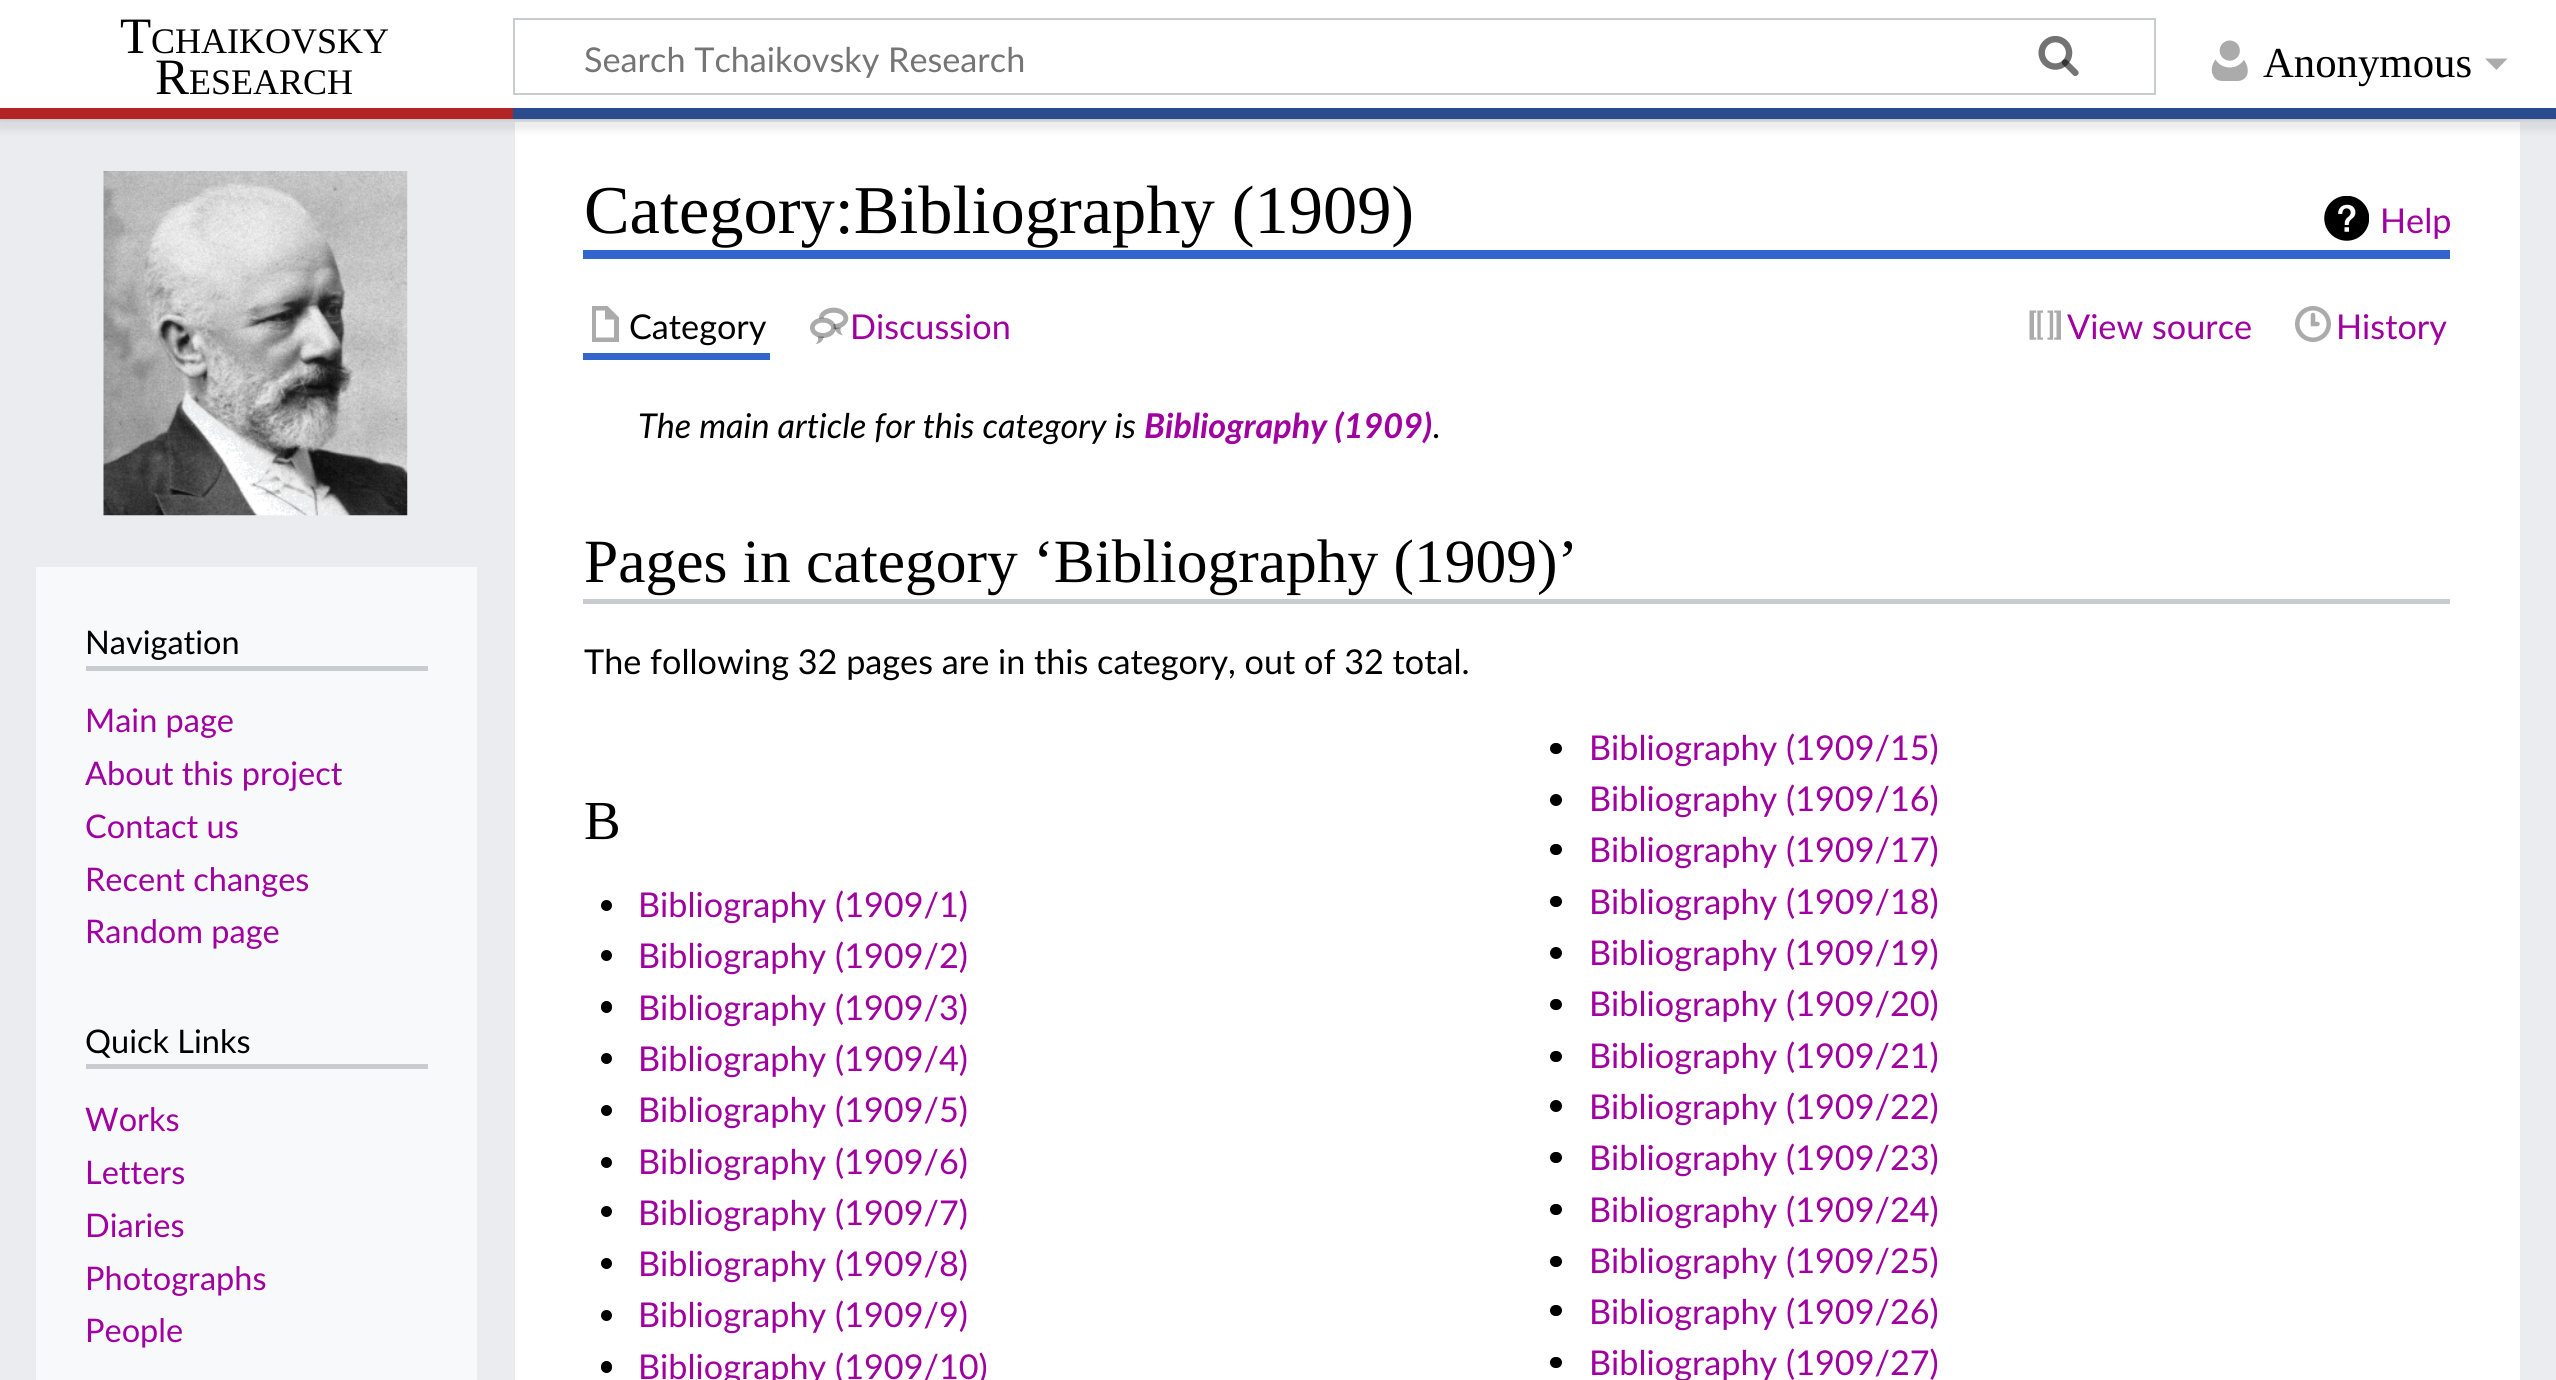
import math
import cairo

surface = cairo.ImageSurface(cairo.Format.RGB24, 2556, 1380)
ctx = cairo.Context(surface)
options = cairo.FontOptions()
options.set_hint_metrics(cairo.HintMetrics.OFF)
options.set_hint_style(cairo.HintStyle.NONE)
ctx.set_font_options(options)
ctx.set_miter_limit(4)


def ink(r, g, b):
    ctx.set_source_rgb(r / 255, g / 255, b / 255)


def write(x, y, s, family, size, color, bold=False, italic=False):
    ctx.select_font_face(family, cairo.FontSlant.ITALIC if italic else cairo.FontSlant.NORMAL, cairo.FontWeight.BOLD if bold else cairo.FontWeight.NORMAL)
    ctx.set_font_size(size)
    ink(*color)
    ctx.move_to(x, y)
    ctx.show_text(s)


def block(x, y, w, h, *color):
    ink(*color)
    ctx.rectangle(x, y, w, h)
    ctx.fill()


def round_path(x, y, w, h, r):
    ctx.new_sub_path()
    for i, (u, v) in enumerate([(x + w - r, y + h - r), (x + r, y + h - r), (x + r, y + r), (x + w - r, y + r)]):
        ctx.arc(u, v, r, i * math.pi / 2, (i + 1) * math.pi / 2)
    ctx.close_path()


def blur_box(x, y, w, h, r, blur, alpha):
    ctx.push_group_with_content(cairo.Content.ALPHA)
    ctx.set_operator(cairo.Operator.SOURCE)
    for i in range(15, -16, -2):
        e = blur * i / 6
        if min(w, h) + 2 * e > 0:
            ctx.set_source_rgba(0, 0, 0, alpha * math.erfc((i - 1) / 8.5) / 2)
            round_path(x - e, y - e, w + 2 * e, h + 2 * e, max(0, min(r + e + blur * .6, min(w, h) / 2 + e)))
            ctx.fill()
    ctx.mask(ctx.pop_group())


def paste(path, x, y, w, h):
    ctx.save()
    ctx.set_source_surface(cairo.ImageSurface.create_from_png(path), x, y)
    ctx.rectangle(x, y, w, h)
    ctx.fill()
    ctx.restore()


s1 = dict(family="Liberation Serif", size=51, color=(0, 0, 0))
s2 = dict(family="Liberation Serif", size=36, color=(0, 0, 0))
s3 = dict(family="Lato", size=34.2, color=(117, 117, 117))
s4 = dict(family="Liberation Serif", size=42.75, color=(0, 0, 0))
s5 = dict(family="Lato", size=32.5, color=(0, 0, 0))
s6 = dict(family="Lato", size=32.5, color=(160, 0, 160))
s7 = dict(family="Liberation Serif", size=68.4, color=(0, 0, 0))
s8 = dict(family="Lato", size=34.2, color=(160, 0, 160))
s9 = dict(family="Lato", size=34.2, color=(0, 0, 0))
s10 = dict(family="Lato", size=34.2, color=(0, 0, 0), italic=True)
s11 = dict(family="Lato", size=34.2, color=(160, 0, 160), bold=True, italic=True)
s12 = dict(family="Liberation Serif", size=61.5, color=(0, 0, 0))
s13 = dict(family="Liberation Serif", size=55, color=(0, 0, 0))

ink(234, 236, 240)
ctx.paint()
block(515, 122, 2005, 1258, 255, 255, 255)
ink(0, 0, 0)
blur_box(0, 108, 2556, 11, 0, 2, 0.2)
blur_box(-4, 110, 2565, 21, 0, 3.5, 0.07)
block(0, 0, 2556, 108, 255, 255, 255)
write(120, 53, "T", **s1)
write(151, 53, "CHAIKOVSKY", **s2)
write(155, 94, "R", **s1)
write(189, 94, "ESEARCH", **s2)
ctx.rectangle(514, 19, 1641, 75)
ink(200, 204, 209)
ctx.stroke()
paste("pic1.png", 2038, 36, 41, 40)
write(584, 72, "Search Tchaikovsky Research", **s3)
paste("pic2.png", 2038, 36, 41, 40)
paste("pic3.png", 2211, 40, 37, 41)
write(2263, 77, "Anonymous", **s4)
ink(171, 171, 171)
ctx.new_path()
ctx.move_to(2507.5, 58.5)
ctx.line_to(2496.5, 70)
ctx.line_to(2485, 58.5)
ctx.close_path()
ctx.fill()
block(0, 108, 513, 11, 179, 36, 36)
block(513, 108, 2043, 11, 42, 75, 141)
paste("pic4.png", 103, 171, 305, 345)
block(36, 567, 441, 813, 248, 249, 250)
block(86, 666, 342, 5, 200, 204, 209)
write(85, 654, "Navigation", **s5)
write(85, 732, "Main page", **s6)
write(85, 785, "About this project", **s6)
write(85, 838, "Contact us", **s6)
write(85, 891, "Recent changes", **s6)
write(85, 943, "Random page", **s6)
block(86, 1064, 342, 5, 200, 204, 209)
write(85, 1053, "Quick Links", **s5)
write(85, 1131, "Works", **s6)
write(85, 1184, "Letters", **s6)
write(85, 1237, "Diaries", **s6)
write(85, 1290, "Photographs", **s6)
write(85, 1342, "People", **s6)
block(583, 250, 1867, 9, 51, 102, 204)
write(584, 233, "Category:Bibliography (1909)", **s7)
paste("pic5.png", 2324, 196, 45, 45)
write(2380, 233, "Help", **s8)
block(583, 353, 187, 7, 51, 102, 204)
ink(171, 171, 171)
ctx.new_path()
ctx.move_to(592, 306)
ctx.line_to(592, 342)
ctx.line_to(619, 342)
ctx.line_to(619, 317.5)
ctx.line_to(607.5, 306)
ctx.close_path()
ctx.move_to(596, 310.5)
ctx.line_to(605, 310.5)
ctx.line_to(605, 319.5)
ctx.line_to(614, 319.5)
ctx.line_to(614, 337.5)
ctx.line_to(596, 337.5)
ctx.close_path()
ctx.fill()
write(629, 339, "Category", **s9)
paste("pic6.png", 810, 307, 39, 37)
write(850, 339, "Discussion", **s8)
paste("pic7.png", 2029, 310, 32, 30)
write(2067, 339, "View source", **s8)
paste("pic8.png", 2295, 306, 36, 36)
write(2336, 339, "History", **s8)
write(638, 438, "The main article for this category is", **s10)
write(1144, 438, "Bibliography (1909)", **s11)
write(1432, 438, ".", **s9)
block(583, 599, 1867, 5, 200, 204, 209)
write(584, 582, "Pages in category ‘Bibliography (1909)’", **s12)
write(584, 674, "The following 32 pages are in this category, out of 32 total.", **s9)
write(584, 839, "B", **s13)
round_path(1550, 743, 12, 11, 5.5)
ctx.fill()
write(1589, 760, "Bibliography (1909/15)", **s8)
ink(0, 0, 0)
ctx.new_path()
ctx.arc(1556, 800, 6, 0, 2 * math.pi)
ctx.fill()
write(1589, 811, "Bibliography (1909/16)", **s8)
ink(0, 0, 0)
round_path(1550, 844, 12, 11, 5.5)
ctx.fill()
write(1589, 862, "Bibliography (1909/17)", **s8)
ink(0, 0, 0)
ctx.new_path()
ctx.arc(606.5, 905.5, 5.5, 0, 2 * math.pi)
ctx.fill()
write(638, 917, "Bibliography (1909/1)", **s8)
ink(0, 0, 0)
round_path(1550, 896, 12, 11, 5.5)
ctx.fill()
write(1589, 914, "Bibliography (1909/18)", **s8)
ink(0, 0, 0)
ctx.new_path()
ctx.arc(606.5, 955.5, 5.5, 0, 2 * math.pi)
ctx.fill()
write(638, 968, "Bibliography (1909/2)", **s8)
ink(0, 0, 0)
ctx.new_path()
ctx.arc(1556, 953, 6, 0, 2 * math.pi)
ctx.fill()
write(1589, 965, "Bibliography (1909/19)", **s8)
ink(0, 0, 0)
round_path(601, 1001, 11, 12, 5.5)
ctx.fill()
write(638, 1020, "Bibliography (1909/3)", **s8)
ink(0, 0, 0)
round_path(1550, 999, 12, 11, 5.5)
ctx.fill()
write(1589, 1016, "Bibliography (1909/20)", **s8)
ink(0, 0, 0)
ctx.new_path()
ctx.arc(606.5, 1058.5, 5.5, 0, 2 * math.pi)
ctx.fill()
write(638, 1071, "Bibliography (1909/4)", **s8)
ink(0, 0, 0)
round_path(1550, 1051, 12, 11, 5.5)
ctx.fill()
write(1589, 1068, "Bibliography (1909/21)", **s8)
ink(0, 0, 0)
ctx.new_path()
ctx.arc(606.5, 1110.5, 5.5, 0, 2 * math.pi)
ctx.fill()
write(638, 1122, "Bibliography (1909/5)", **s8)
ink(0, 0, 0)
ctx.new_path()
ctx.arc(1556, 1106, 6, 0, 2 * math.pi)
ctx.fill()
write(1589, 1119, "Bibliography (1909/22)", **s8)
ink(0, 0, 0)
ctx.new_path()
ctx.arc(606.5, 1162.5, 5.5, 0, 2 * math.pi)
ctx.fill()
write(638, 1174, "Bibliography (1909/6)", **s8)
ink(0, 0, 0)
round_path(1550, 1152, 12, 11, 5.5)
ctx.fill()
write(1589, 1170, "Bibliography (1909/23)", **s8)
ink(0, 0, 0)
ctx.new_path()
ctx.arc(606.5, 1211.5, 5.5, 0, 2 * math.pi)
ctx.fill()
write(638, 1225, "Bibliography (1909/7)", **s8)
ink(0, 0, 0)
round_path(1550, 1204, 12, 11, 5.5)
ctx.fill()
write(1589, 1222, "Bibliography (1909/24)", **s8)
ink(0, 0, 0)
ctx.new_path()
ctx.arc(606.5, 1263.5, 5.5, 0, 2 * math.pi)
ctx.fill()
write(638, 1276, "Bibliography (1909/8)", **s8)
ink(0, 0, 0)
round_path(1550, 1256, 12, 11, 5.5)
ctx.fill()
write(1589, 1273, "Bibliography (1909/25)", **s8)
ink(0, 0, 0)
ctx.new_path()
ctx.arc(606.5, 1315.5, 5.5, 0, 2 * math.pi)
ctx.fill()
write(638, 1327, "Bibliography (1909/9)", **s8)
ink(0, 0, 0)
round_path(1550, 1305, 12, 11, 5.5)
ctx.fill()
write(1589, 1324, "Bibliography (1909/26)", **s8)
ink(0, 0, 0)
round_path(601, 1361, 11, 12, 5.5)
ctx.fill()
write(638, 1379, "Bibliography (1909/10)", **s8)
ink(0, 0, 0)
round_path(1550, 1357, 12, 11, 5.5)
ctx.fill()
write(1589, 1375, "Bibliography (1909/27)", **s8)
surface.write_to_png("screenshot.png")
